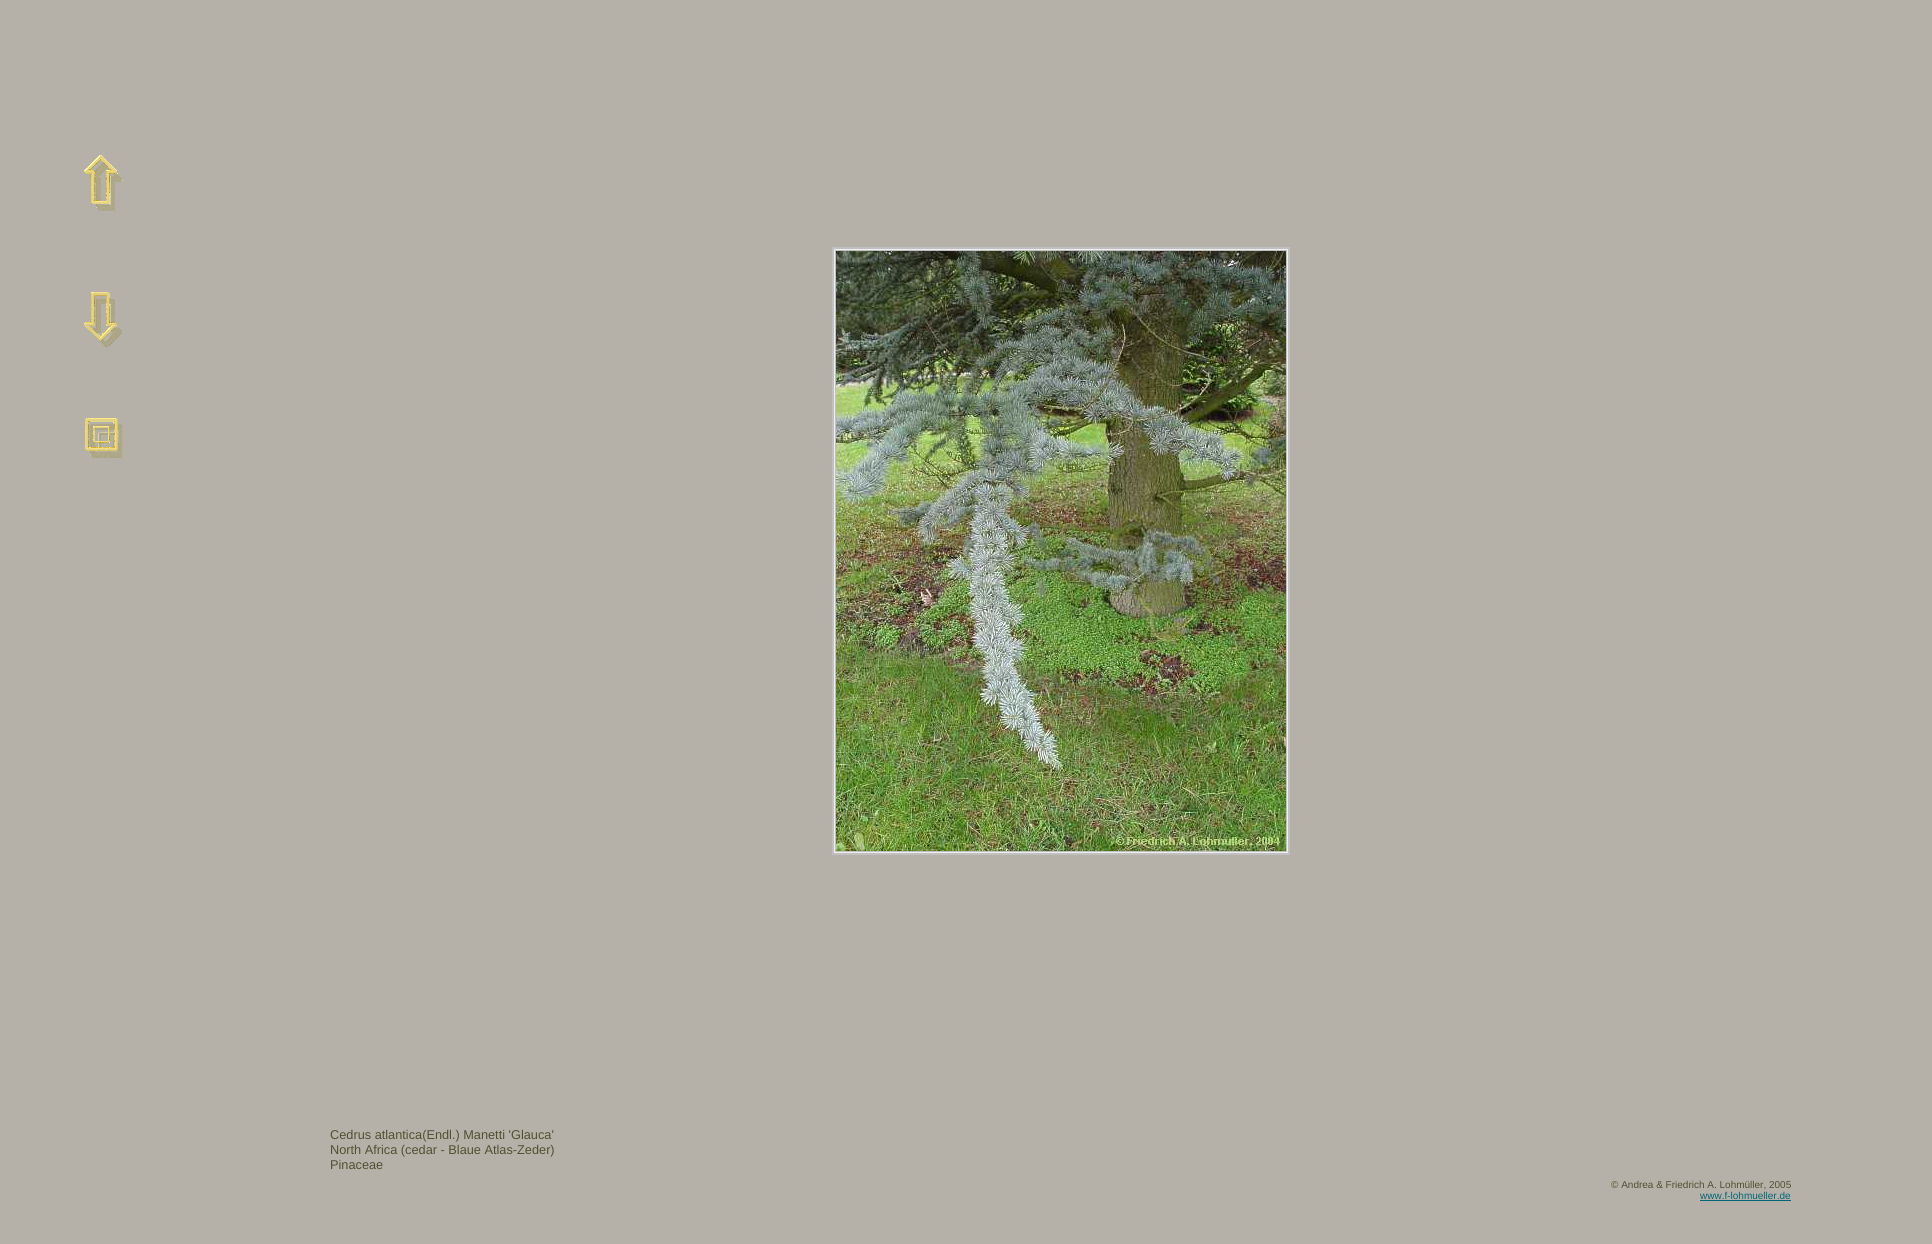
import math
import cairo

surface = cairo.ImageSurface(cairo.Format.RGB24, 1932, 1244)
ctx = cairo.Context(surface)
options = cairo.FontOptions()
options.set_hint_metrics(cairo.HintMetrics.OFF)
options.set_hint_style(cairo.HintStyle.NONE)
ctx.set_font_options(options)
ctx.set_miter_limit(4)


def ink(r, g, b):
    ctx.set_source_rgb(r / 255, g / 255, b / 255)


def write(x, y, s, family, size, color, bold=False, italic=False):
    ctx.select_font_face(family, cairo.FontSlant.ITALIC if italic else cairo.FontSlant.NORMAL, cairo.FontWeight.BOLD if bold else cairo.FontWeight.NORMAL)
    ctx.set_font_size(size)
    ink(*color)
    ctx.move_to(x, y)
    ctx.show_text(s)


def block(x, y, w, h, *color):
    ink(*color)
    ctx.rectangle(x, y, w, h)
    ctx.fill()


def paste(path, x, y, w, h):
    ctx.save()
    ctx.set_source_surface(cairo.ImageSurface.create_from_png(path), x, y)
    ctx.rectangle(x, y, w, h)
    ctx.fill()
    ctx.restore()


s1 = dict(family="Liberation Sans", size=12.75, color=(80, 80, 48))
s2 = dict(family="Liberation Sans", size=10, color=(80, 80, 48))
s3 = dict(family="Liberation Sans", size=10, color=(0, 102, 119))

ink(182, 177, 168)
ctx.paint()
paste("pic1.png", 84, 155, 39, 303)
ink(239, 239, 239)
ctx.rectangle(833, 248, 456, 606)
ctx.fill_preserve()
ink(192, 192, 192)
ctx.stroke()
ctx.rectangle(835.5, 250.5, 451, 601)
ctx.set_line_width(1)
ctx.stroke()
paste("pic2.png", 836, 251, 450, 600)
write(330, 1139, "Cedrus atlantica(Endl.) Manetti 'Glauca'", **s1)
write(330, 1154, "North Africa (cedar - Blaue Atlas-Zeder)", **s1)
write(330, 1169, "Pinaceae", **s1)
write(1611, 1188, "© Andrea & Friedrich A. Lohmüller, 2005", **s2)
write(1700, 1199, "www.f-lohmueller.de", **s3)
block(1700, 1200, 91, 1, 0, 102, 119)
surface.write_to_png("screenshot.png")
